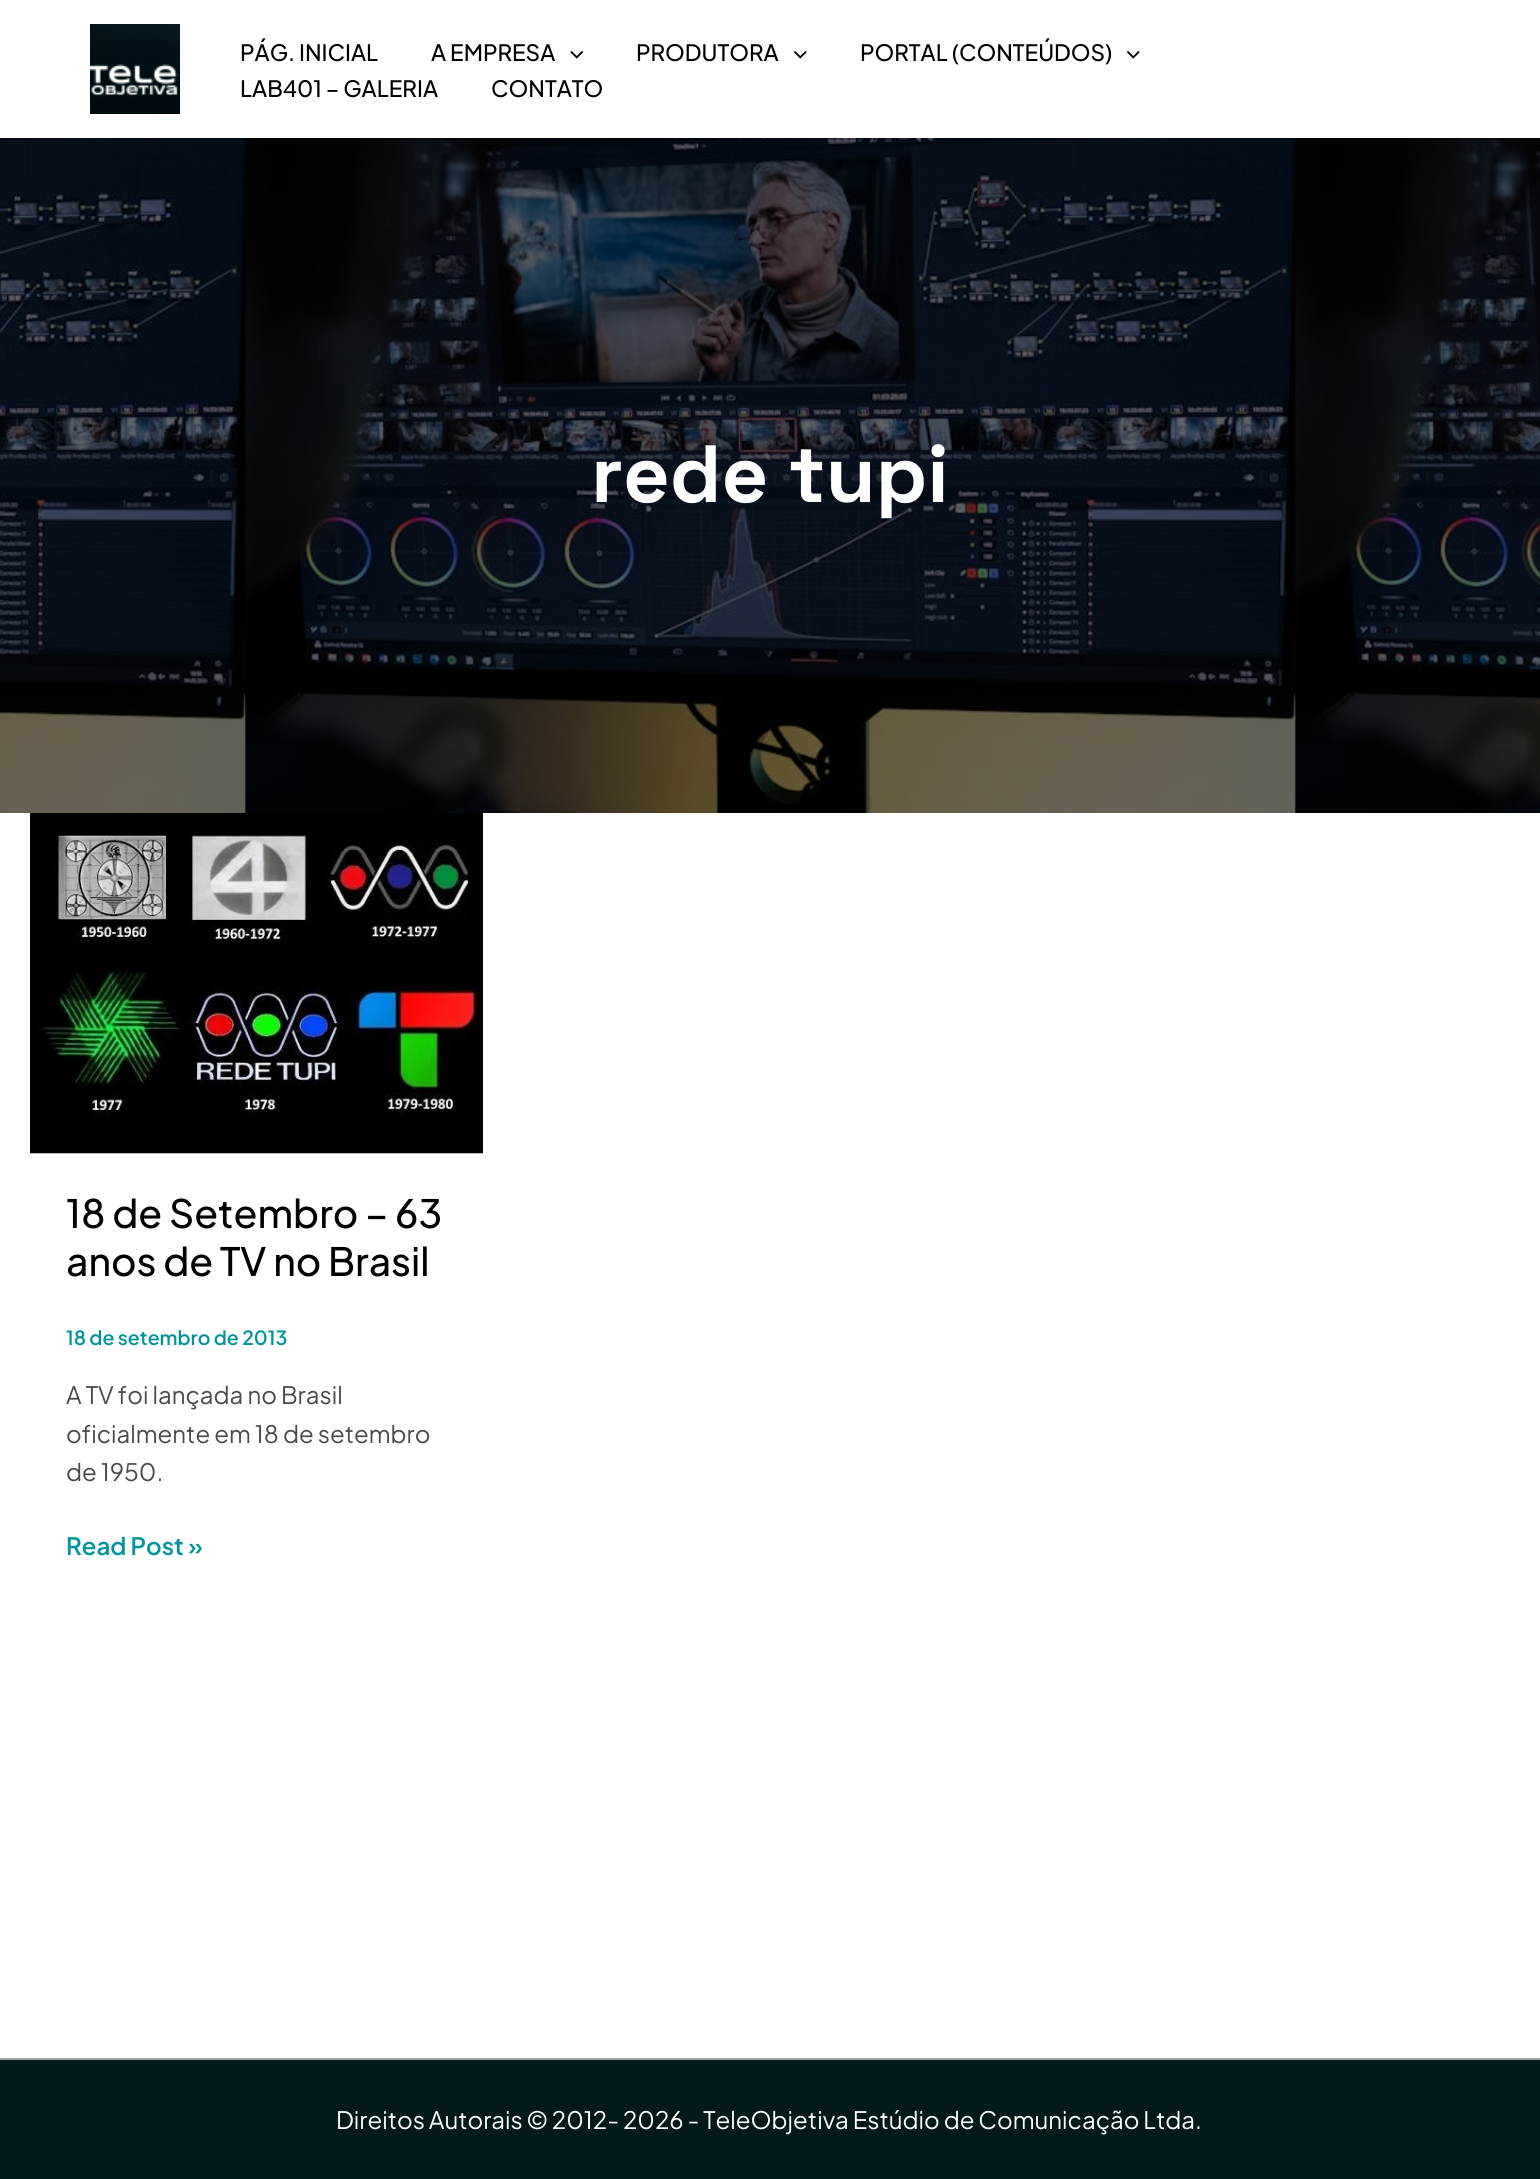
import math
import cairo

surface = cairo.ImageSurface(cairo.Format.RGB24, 1540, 2179)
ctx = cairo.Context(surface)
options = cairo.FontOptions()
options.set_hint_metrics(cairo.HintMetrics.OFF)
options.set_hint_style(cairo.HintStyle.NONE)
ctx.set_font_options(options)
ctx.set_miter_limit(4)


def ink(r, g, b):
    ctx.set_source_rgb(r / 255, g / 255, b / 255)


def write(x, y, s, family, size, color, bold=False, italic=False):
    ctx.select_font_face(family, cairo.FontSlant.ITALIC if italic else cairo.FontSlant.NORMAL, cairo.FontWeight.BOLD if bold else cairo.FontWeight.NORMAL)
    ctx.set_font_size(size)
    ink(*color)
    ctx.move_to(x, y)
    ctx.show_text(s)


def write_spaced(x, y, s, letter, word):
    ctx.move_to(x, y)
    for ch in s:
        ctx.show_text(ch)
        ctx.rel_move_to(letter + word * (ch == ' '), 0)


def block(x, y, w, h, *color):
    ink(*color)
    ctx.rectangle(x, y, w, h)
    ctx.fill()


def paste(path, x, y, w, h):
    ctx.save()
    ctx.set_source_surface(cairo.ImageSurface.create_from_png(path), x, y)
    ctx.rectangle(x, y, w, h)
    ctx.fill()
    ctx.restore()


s1 = dict(family="Plus Jakarta Sans Medium", size=22.5, color=(0, 0, 0))
s2 = dict(family="Space Grotesk Light", size=81, color=(255, 255, 255))
s3 = dict(family="Plus Jakarta Sans Medium", size=39, color=(0, 0, 0))
s4 = dict(family="Plus Jakarta Sans SemiBold", size=19.5, color=(0, 148, 157))
s5 = dict(family="Plus Jakarta Sans", size=24, color=(74, 74, 74))
s6 = dict(family="Plus Jakarta Sans SemiBold", size=24, color=(0, 148, 157))

ink(255, 255, 255)
ctx.paint()
paste("pic1.png", 90, 24, 90, 90)
write(240, 61, "PÁG. INICIAL", **s1)
write(431, 61, "A EMPRESA", **s1)
paste("pic2.png", 570, 51, 14, 8)
write(636, 61, "PRODUTORA", **s1)
paste("pic3.png", 794, 51, 13, 8)
write(860, 61, "PORTAL (CONTEÚDOS)", **s1)
paste("pic3.png", 1127, 51, 13, 8)
write(240, 97, "LAB401 – GALERIA", **s1)
write(491, 97, "CONTATO", **s1)
paste("pic4.png", 0, 138, 1540, 675)
write(591, 502, "rede tupi", **s2)
paste("pic5.png", 30, 813, 453, 341)
write(66, 1228, "18 de Setembro – 63", **s3)
write(66, 1276, "anos de TV no Brasil", **s3)
write(66, 1345, "18 de setembro de 2013", **s4)
write(66, 1404, "A TV foi lançada no Brasil", **s5)
write(66, 1443, "oficialmente em 18 de setembro", **s5)
write(66, 1481, "de 1950.", **s5)
write(66, 1555, "Read Post »", **s6)
block(0, 2060, 1540, 119, 3, 25, 26)
block(0, 2058, 1540, 2, 154, 167, 167)
ctx.select_font_face("Plus Jakarta Sans")
ink(255, 255, 255)
write_spaced(336, 2129, "Direitos Autorais © 2012- 2026 - TeleObjetiva Estúdio de Comunicação Ltda.", 0, -0.25)
surface.write_to_png("screenshot.png")
